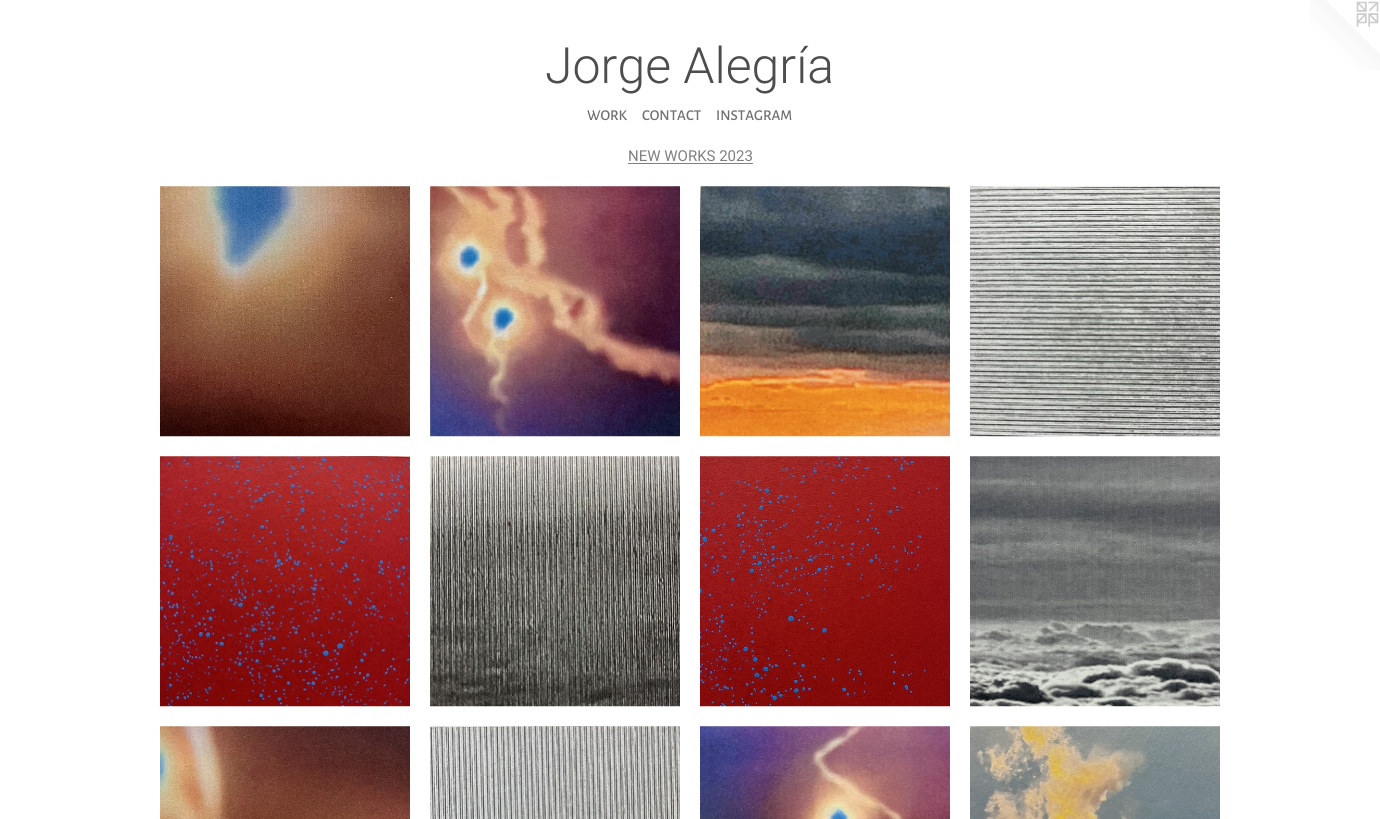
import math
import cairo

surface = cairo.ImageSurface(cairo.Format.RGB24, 1380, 819)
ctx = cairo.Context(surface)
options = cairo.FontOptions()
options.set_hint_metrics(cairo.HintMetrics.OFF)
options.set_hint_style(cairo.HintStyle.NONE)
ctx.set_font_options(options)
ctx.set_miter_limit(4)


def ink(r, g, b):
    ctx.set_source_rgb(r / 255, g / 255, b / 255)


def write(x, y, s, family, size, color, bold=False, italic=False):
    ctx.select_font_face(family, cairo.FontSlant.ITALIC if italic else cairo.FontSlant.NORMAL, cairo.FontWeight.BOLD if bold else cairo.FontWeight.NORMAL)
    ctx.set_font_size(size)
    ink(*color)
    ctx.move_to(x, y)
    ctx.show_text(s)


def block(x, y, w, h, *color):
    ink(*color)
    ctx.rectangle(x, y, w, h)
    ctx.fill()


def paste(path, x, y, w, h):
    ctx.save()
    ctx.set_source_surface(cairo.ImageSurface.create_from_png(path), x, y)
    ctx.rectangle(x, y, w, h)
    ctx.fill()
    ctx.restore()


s1 = dict(family="Roboto Light", size=50, color=(77, 77, 77))
s2 = dict(family="Alegreya Sans SC Medium", size=15, color=(112, 112, 112))
s3 = dict(family="Roboto", size=15, color=(128, 128, 128))

ink(255, 255, 255)
ctx.paint()
write(545, 83, "Jorge Alegría", **s1)
paste("pic1.png", 1310, 0, 70, 70)
write(587, 120, "WORK", **s2)
write(642, 120, "CONTACT", **s2)
write(716, 120, "INSTAGRAM", **s2)
write(628, 161, "NEW WORKS 2023", **s3)
block(628, 163, 125, 1, 128, 128, 128)
paste("pic2.png", 160, 186, 250, 251)
paste("pic3.png", 430, 186, 250, 251)
paste("pic4.png", 700, 186, 250, 251)
paste("pic5.png", 970, 186, 250, 251)
paste("pic6.png", 160, 456, 250, 251)
paste("pic7.png", 430, 456, 250, 251)
paste("pic8.png", 700, 456, 250, 251)
paste("pic9.png", 970, 456, 250, 251)
paste("pic10.png", 160, 726, 250, 93)
paste("pic11.png", 430, 726, 250, 93)
paste("pic12.png", 700, 726, 250, 93)
paste("pic13.png", 970, 726, 250, 93)
surface.write_to_png("screenshot.png")
